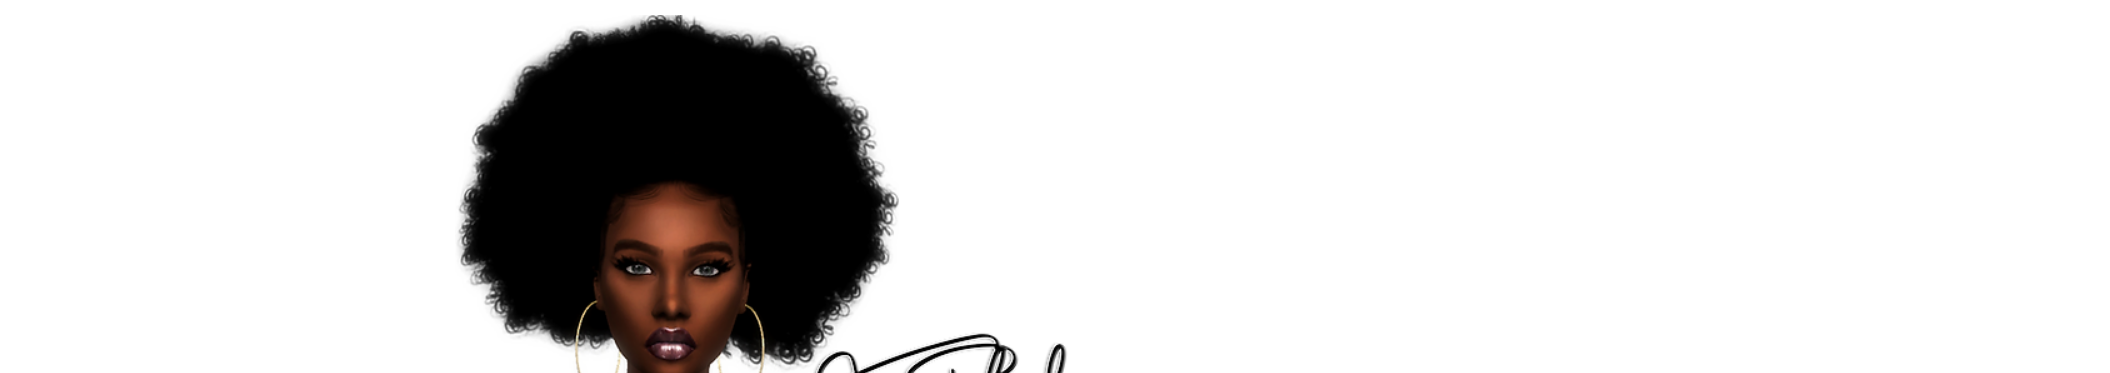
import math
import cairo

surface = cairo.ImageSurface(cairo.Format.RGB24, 2110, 373)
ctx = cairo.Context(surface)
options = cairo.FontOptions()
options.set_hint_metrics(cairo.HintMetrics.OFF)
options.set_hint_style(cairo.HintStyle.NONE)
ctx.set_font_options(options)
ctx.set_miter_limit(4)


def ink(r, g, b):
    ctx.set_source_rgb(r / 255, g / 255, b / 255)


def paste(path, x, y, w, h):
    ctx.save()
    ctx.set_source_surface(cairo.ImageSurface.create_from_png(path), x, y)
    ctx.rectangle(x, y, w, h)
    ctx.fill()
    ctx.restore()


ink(255, 255, 255)
ctx.paint()
paste("pic1.png", 455, 15, 444, 358)
paste("pic2.png", 813, 332, 255, 41)
surface.write_to_png("screenshot.png")
